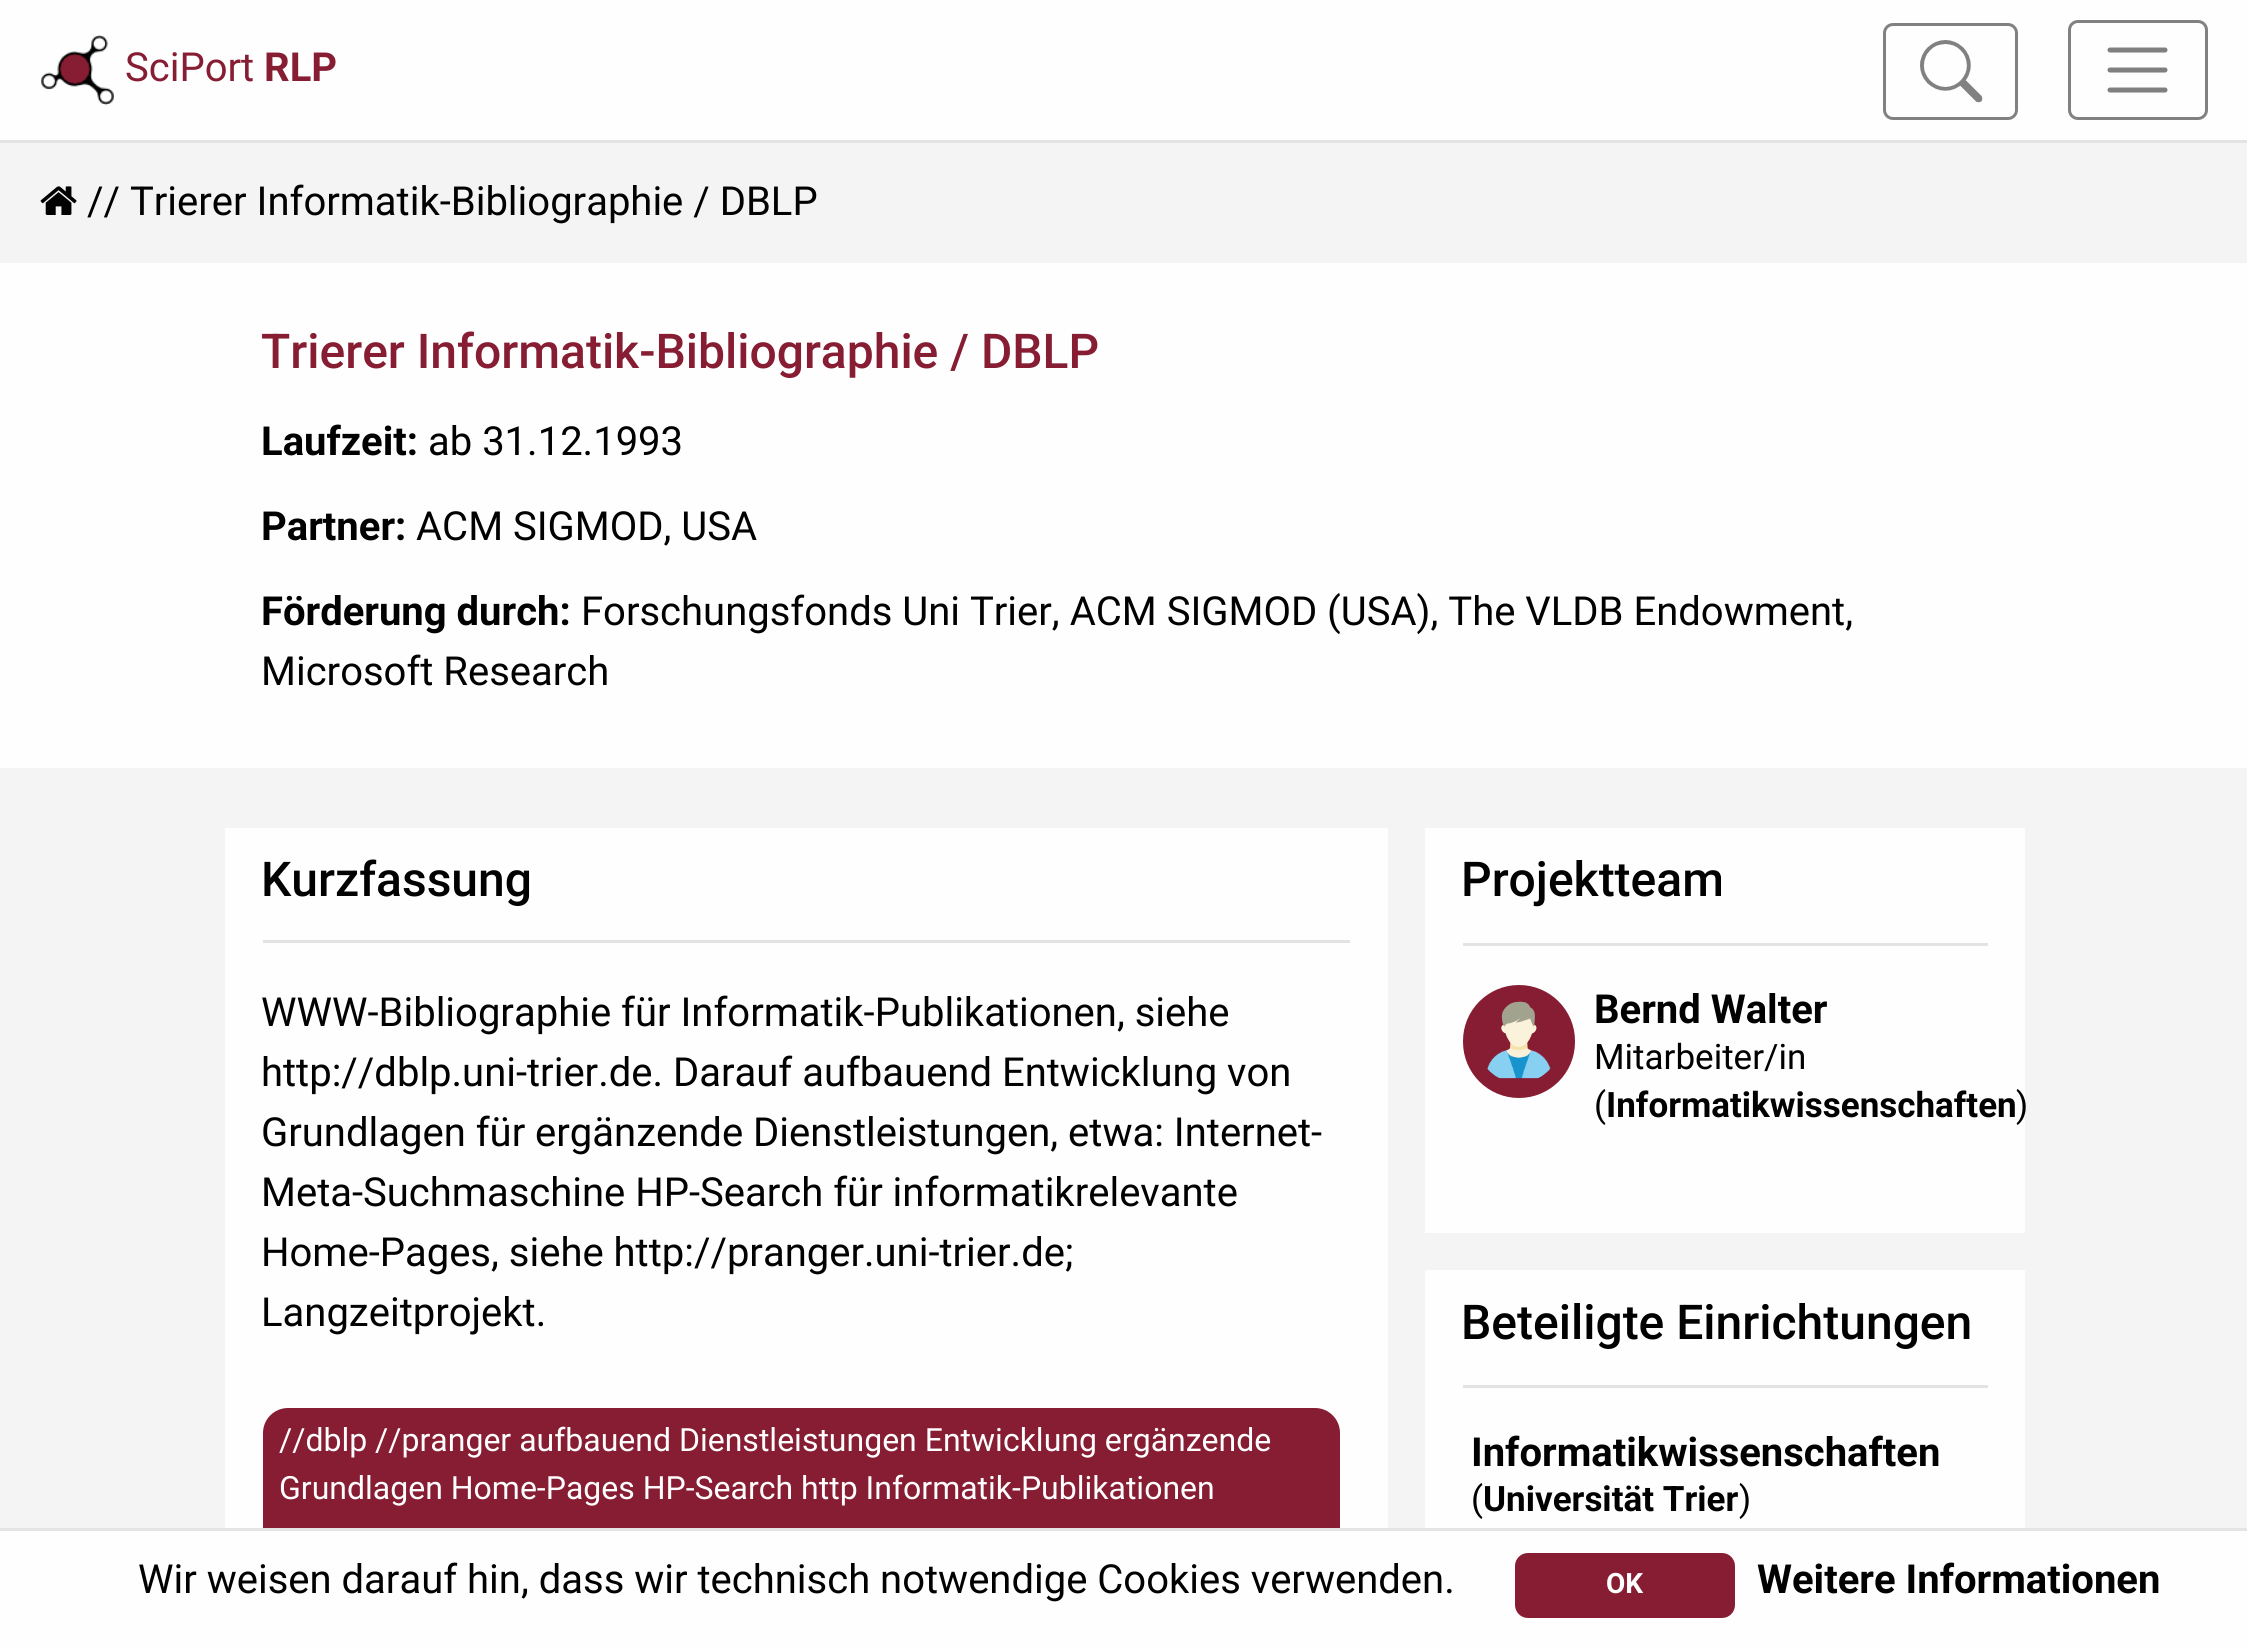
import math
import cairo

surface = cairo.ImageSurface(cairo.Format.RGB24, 2247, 1649)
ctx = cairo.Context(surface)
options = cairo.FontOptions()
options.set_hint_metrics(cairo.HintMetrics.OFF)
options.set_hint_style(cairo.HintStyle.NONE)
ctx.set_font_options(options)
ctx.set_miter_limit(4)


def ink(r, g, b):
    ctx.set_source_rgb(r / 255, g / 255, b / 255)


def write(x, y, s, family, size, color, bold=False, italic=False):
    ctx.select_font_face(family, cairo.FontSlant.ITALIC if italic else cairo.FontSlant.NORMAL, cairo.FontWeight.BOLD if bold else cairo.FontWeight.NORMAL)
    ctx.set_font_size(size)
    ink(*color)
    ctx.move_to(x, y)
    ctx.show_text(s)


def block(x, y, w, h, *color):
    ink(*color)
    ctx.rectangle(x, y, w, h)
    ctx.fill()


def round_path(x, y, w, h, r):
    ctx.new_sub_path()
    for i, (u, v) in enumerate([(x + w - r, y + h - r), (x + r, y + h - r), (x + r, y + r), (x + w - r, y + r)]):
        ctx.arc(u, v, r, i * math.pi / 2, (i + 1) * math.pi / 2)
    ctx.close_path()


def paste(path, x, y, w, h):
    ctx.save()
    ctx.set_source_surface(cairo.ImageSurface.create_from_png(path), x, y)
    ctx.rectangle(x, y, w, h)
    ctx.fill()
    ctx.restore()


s1 = dict(family="Roboto", size=40, color=(135, 29, 51))
s2 = dict(family="Roboto", size=40, color=(135, 29, 51), bold=True)
s3 = dict(family="Roboto", size=40, color=(1, 1, 1))
s4 = dict(family="Roboto Medium", size=48, color=(135, 29, 51))
s5 = dict(family="Roboto", size=40, color=(1, 1, 1), bold=True)
s6 = dict(family="Roboto Medium", size=48, color=(1, 1, 1))
s7 = dict(family="Roboto", size=32, color=(254, 254, 254))
s8 = dict(family="Roboto", size=35, color=(1, 1, 1))
s9 = dict(family="Roboto", size=35, color=(1, 1, 1), bold=True)
s10 = dict(family="Roboto", size=28, color=(254, 254, 254), bold=True)

ink(244, 244, 244)
ctx.paint()
block(0, 0, 2247, 140, 254, 254, 254)
block(0, 140, 2247, 3, 227, 227, 227)
paste("pic1.png", 41, 35, 73, 71)
write(125, 81, "SciPort", **s1)
write(264, 81, "RLP", **s2)
round_path(1884.5, 24.5, 132, 94, 8.5)
ink(129, 129, 129)
ctx.set_line_width(3)
ctx.stroke()
paste("pic2.png", 1920, 40, 63, 63)
round_path(2069.5, 21.5, 137, 97, 8.5)
ctx.stroke()
ctx.new_path()
ctx.move_to(2110, 50)
ctx.line_to(2165, 50)
ctx.move_to(2110, 70)
ctx.line_to(2165, 70)
ctx.move_to(2110, 90)
ctx.line_to(2165, 90)
ink(127, 127, 127)
ctx.set_line_width(5)
ctx.set_line_cap(cairo.LineCap.ROUND)
ctx.stroke()
paste("pic3.png", 40, 186, 37, 29)
write(87, 215, "// Trierer Informatik-Bibliographie / DBLP", **s3)
block(0, 263, 2247, 505, 254, 254, 254)
write(261, 368, "Trierer Informatik-Bibliographie / DBLP", **s4)
write(261, 455, "Laufzeit:", **s5)
write(428, 455, "ab 31.12.1993", **s3)
write(261, 540, "Partner:", **s5)
write(416, 540, "ACM SIGMOD, USA", **s3)
write(261, 625, "Förderung durch:", **s5)
write(581, 625, "Forschungsfonds Uni Trier, ACM SIGMOD (USA), The VLDB Endowment,", **s3)
write(261, 685, "Microsoft Research", **s3)
block(225, 828, 1163, 700, 254, 254, 254)
write(261, 896, "Kurzfassung", **s6)
block(263, 940, 1087, 3, 227, 227, 227)
write(261, 1026, "WWW-Bibliographie für Informatik-Publikationen, siehe", **s3)
write(261, 1086, "http://dblp.uni-trier.de. Darauf aufbauend Entwicklung von", **s3)
write(261, 1146, "Grundlagen für ergänzende Dienstleistungen, etwa: Internet-", **s3)
write(261, 1206, "Meta-Suchmaschine HP-Search für informatikrelevante", **s3)
write(261, 1266, "Home-Pages, siehe http://pranger.uni-trier.de;", **s3)
write(261, 1326, "Langzeitprojekt.", **s3)
ink(135, 29, 51)
round_path(263, 1408, 1077, 207, 25)
ctx.fill()
write(279, 1451, "//dblp //pranger aufbauend Dienstleistungen Entwicklung ergänzende", **s7)
write(279, 1499, "Grundlagen Home-Pages HP-Search http Informatik-Publikationen", **s7)
block(1425, 828, 600, 405, 254, 254, 254)
write(1461, 896, "Projektteam", **s6)
block(1463, 943, 525, 3, 227, 227, 227)
ink(135, 29, 51)
round_path(1463, 985, 112, 113, 56)
ctx.fill()
paste("pic4.png", 1487, 1001, 64, 78)
write(1594, 1023, "Bernd Walter", **s5)
write(1594, 1069, "Mitarbeiter/in", **s8)
write(1594, 1117, "(", **s8)
write(1606, 1117, "Informatikwissenschaften", **s9)
write(2016, 1117, ")", **s8)
block(1425, 1270, 600, 258, 254, 254, 254)
write(1461, 1339, "Beteiligte Einrichtungen", **s6)
block(1463, 1385, 525, 3, 227, 227, 227)
write(1471, 1466, "Informatikwissenschaften", **s5)
write(1471, 1511, "(", **s8)
write(1483, 1511, "Universität Trier", **s9)
write(1739, 1511, ")", **s8)
block(0, 1531, 2247, 118, 254, 254, 254)
block(0, 1528, 2247, 3, 228, 228, 228)
write(138, 1593, "Wir weisen darauf hin, dass wir technisch notwendige Cookies verwenden.", **s3)
ink(135, 29, 51)
round_path(1516.5, 1554.5, 217, 62, 11.5)
ctx.fill_preserve()
ctx.set_line_width(3)
ctx.set_line_cap(cairo.LineCap.BUTT)
ctx.stroke()
write(1606, 1593, "OK", **s10)
write(1757, 1593, "Weitere Informationen", **s5)
surface.write_to_png("screenshot.png")
